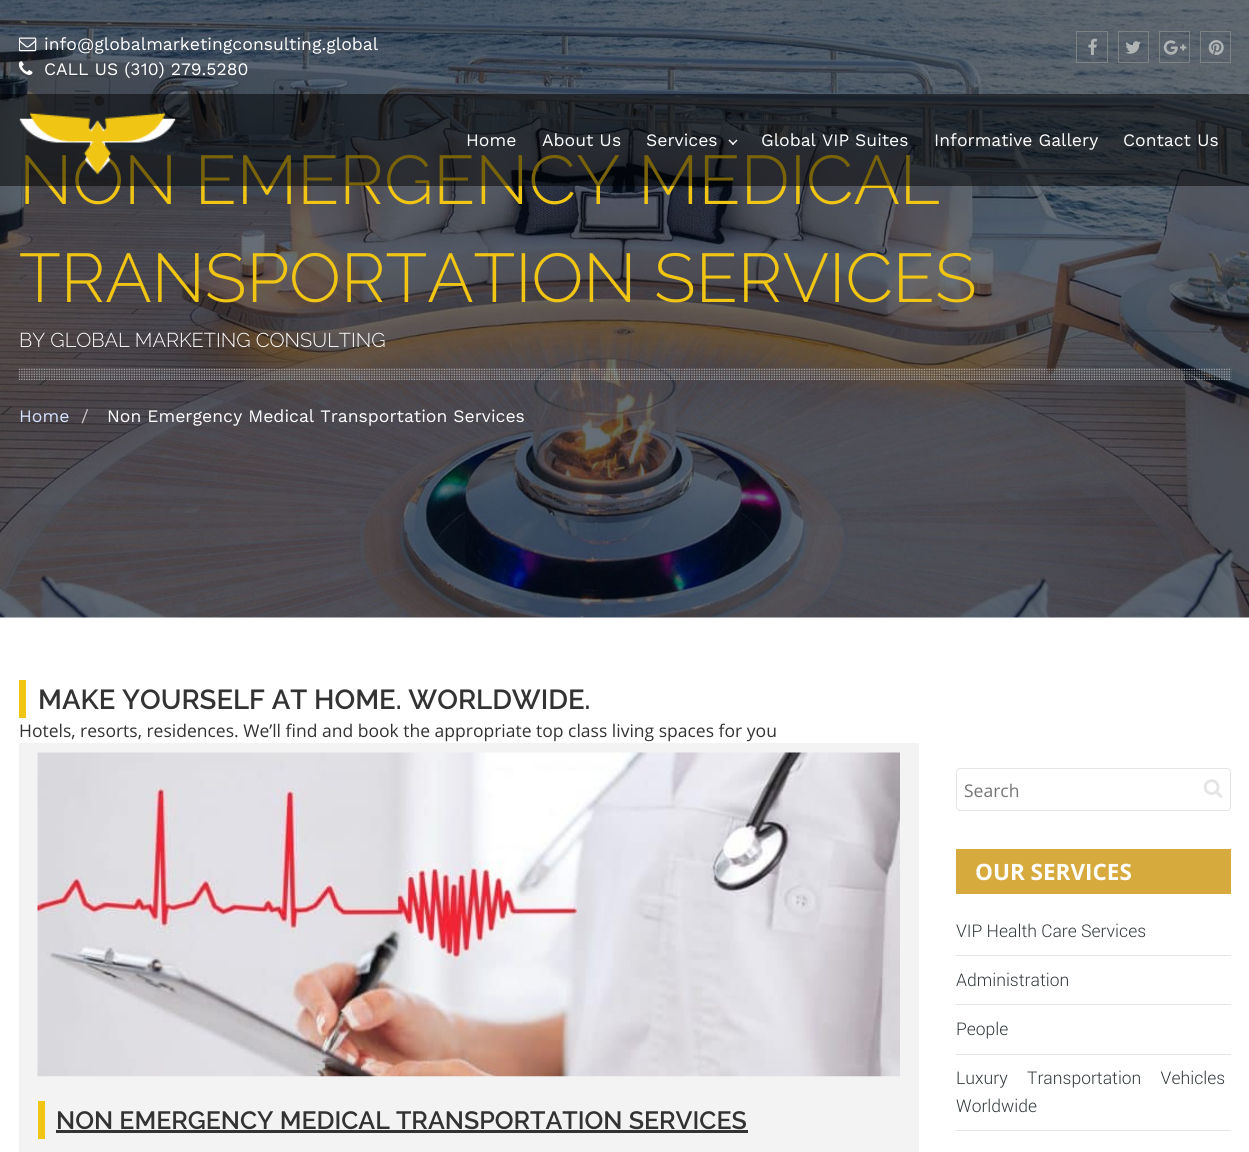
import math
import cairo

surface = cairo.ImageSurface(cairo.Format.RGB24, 1249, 1152)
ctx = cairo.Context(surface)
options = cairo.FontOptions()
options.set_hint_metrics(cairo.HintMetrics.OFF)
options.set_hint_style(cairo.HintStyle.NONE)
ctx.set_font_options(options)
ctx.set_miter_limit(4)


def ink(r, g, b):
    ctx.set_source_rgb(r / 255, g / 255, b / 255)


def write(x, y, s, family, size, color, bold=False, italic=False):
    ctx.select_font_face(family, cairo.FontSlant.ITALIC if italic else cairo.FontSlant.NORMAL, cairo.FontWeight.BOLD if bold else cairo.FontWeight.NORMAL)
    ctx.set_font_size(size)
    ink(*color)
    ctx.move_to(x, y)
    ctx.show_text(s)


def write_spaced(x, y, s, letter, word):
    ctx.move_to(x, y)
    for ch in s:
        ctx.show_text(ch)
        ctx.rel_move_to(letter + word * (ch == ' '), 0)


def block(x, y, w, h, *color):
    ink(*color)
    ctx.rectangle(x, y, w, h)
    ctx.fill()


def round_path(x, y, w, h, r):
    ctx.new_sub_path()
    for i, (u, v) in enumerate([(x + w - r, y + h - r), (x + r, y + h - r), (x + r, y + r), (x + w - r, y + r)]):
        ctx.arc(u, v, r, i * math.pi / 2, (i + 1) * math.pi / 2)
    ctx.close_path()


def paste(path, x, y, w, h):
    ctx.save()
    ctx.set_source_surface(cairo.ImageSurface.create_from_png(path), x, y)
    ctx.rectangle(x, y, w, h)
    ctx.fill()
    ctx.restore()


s1 = dict(family="Work Sans", size=17.5, color=(255, 255, 255))
s2 = dict(family="Raleway Light", size=68.75, color=(240, 197, 20))
s3 = dict(family="Raleway Light", size=20, color=(255, 255, 255))
s4 = dict(family="Work Sans", size=17.5, color=(214, 226, 255))
s5 = dict(family="Work Sans", size=17.5, color=(204, 204, 204))
s6 = dict(family="Raleway SemiBold", size=27.5, color=(51, 51, 51))
s7 = dict(family="Open Sans", size=17.5, color=(51, 51, 51))
s8 = dict(family="Open Sans", size=17.5, color=(117, 117, 117))
s9 = dict(family="Open Sans", size=22.5, color=(255, 255, 255), bold=True)
s10 = dict(family="Roboto Light", size=17.5, color=(48, 56, 59))
s11 = dict(family="Raleway SemiBold", size=25, color=(51, 51, 51))

ink(255, 255, 255)
ctx.paint()
paste("pic1.png", 0, 0, 1249, 618)
paste("pic2.png", 19, 37, 18, 15)
write(44, 50, "info@globalmarketingconsulting.global", **s1)
paste("pic3.png", 19, 61, 14, 14)
write(44, 75, "CALL US (310) 279.5280", **s1)
ctx.rectangle(1076.5, 31.5, 31, 31)
ink(124, 130, 132)
ctx.set_line_width(1)
ctx.stroke()
paste("pic4.png", 1088, 38, 9, 17)
ctx.rectangle(1118.5, 31.5, 30, 31)
ctx.stroke()
paste("pic5.png", 1125, 41, 16, 13)
ctx.rectangle(1159.5, 31.5, 30, 31)
ctx.stroke()
paste("pic6.png", 1163, 40, 24, 15)
ctx.rectangle(1200.5, 31.5, 30, 31)
ctx.stroke()
paste("pic7.png", 1208, 40, 16, 15)
write(19, 204, "NON EMERGENCY MEDICAL", **s2)
ctx.set_source_rgba(0, 0, 0, 0.5)
ctx.rectangle(19, 94, 1212, 92)
ctx.fill()
ctx.rectangle(0, 94, 19, 92)
ctx.fill()
paste("pic8.png", 19, 112, 157, 63)
write(466, 146, "Home", **s1)
write(542, 146, "About Us", **s1)
write(646, 146, "Services", **s1)
ctx.new_path()
ctx.move_to(736.5, 139.5)
ctx.line_to(737.5, 140.5)
ctx.line_to(733, 145)
ctx.line_to(732, 144)
ctx.close_path()
ctx.fill()
ctx.new_path()
ctx.move_to(729.5, 139.5)
ctx.line_to(734, 144)
ctx.line_to(733, 145)
ctx.line_to(728.5, 140.5)
ctx.close_path()
ctx.fill()
write(761, 146, "Global VIP Suites", **s1)
write(934, 146, "Informative Gallery", **s1)
write(1123, 146, "Contact Us", **s1)
ctx.set_source_rgba(0, 0, 0, 0.5)
ctx.rectangle(1231, 94, 18, 92)
ctx.fill()
write(19, 302, "TRANSPORTATION SERVICES", **s2)
write(19, 347, "BY GLOBAL MARKETING CONSULTING", **s3)
paste("pic9.png", 18, 368, 1214, 12)
write(19, 422, "Home", **s4)
write(81, 422, "/", **s5)
write(107, 422, "Non Emergency Medical Transportation Services", **s1)
block(19, 680, 7, 38, 240, 197, 20)
write(38, 709, "MAKE YOURSELF AT HOME. WORLDWIDE.", **s6)
write(19, 737, "Hotels, resorts, residences. We’ll find and book the appropriate top class living spaces for you", **s7)
round_path(956.5, 768.5, 274, 42, 3.5)
ink(229, 229, 229)
ctx.stroke()
write(964, 797, "Search", **s8)
paste("pic10.png", 1203, 779, 20, 19)
block(956, 849, 275, 45, 215, 170, 62)
write(975, 880, "OUR SERVICES", **s9)
block(956, 955, 275, 1, 229, 229, 229)
write(956, 937, "VIP Health Care Services", **s10)
block(956, 1004, 275, 1, 229, 229, 229)
write(956, 986, "Administration", **s10)
block(956, 1054, 275, 1, 229, 229, 229)
write(956, 1035, "People", **s10)
block(956, 1130, 275, 1, 229, 229, 229)
ink(48, 56, 59)
write_spaced(956, 1084, "Luxury Transportation Vehicles", 0, 15)
write(956, 1112, "Worldwide", **s10)
block(19, 743, 900, 409, 243, 243, 243)
paste("pic11.png", 37, 752, 863, 325)
block(38, 1101, 7, 38, 240, 197, 20)
write(56, 1129, "NON EMERGENCY MEDICAL TRANSPORTATION SERVICES", **s11)
block(56, 1130, 692, 3, 51, 51, 51)
surface.write_to_png("screenshot.png")
